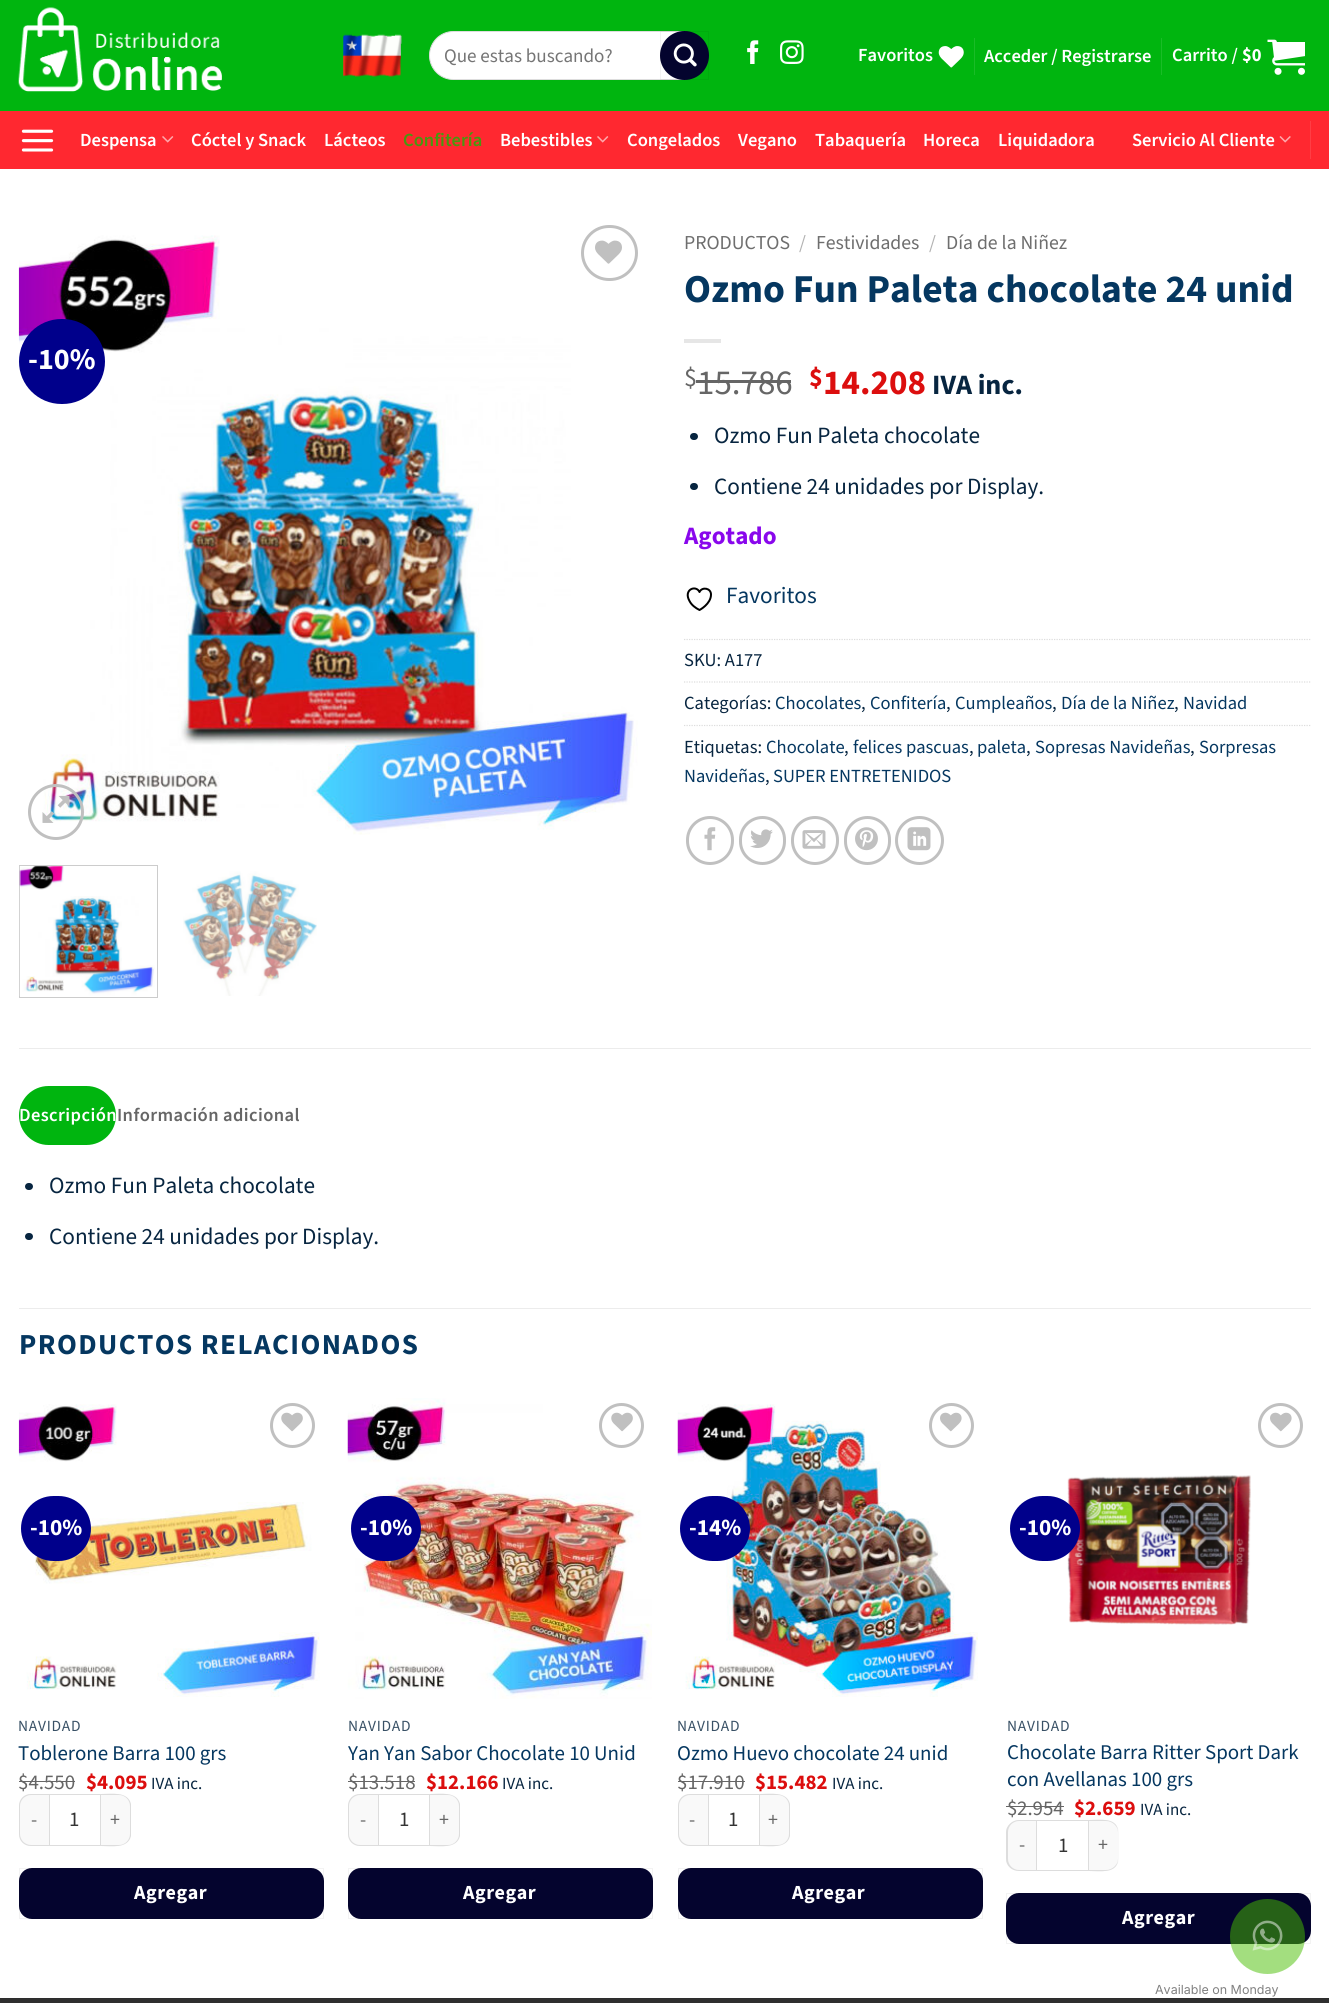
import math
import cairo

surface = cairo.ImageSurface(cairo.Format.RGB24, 1329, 2003)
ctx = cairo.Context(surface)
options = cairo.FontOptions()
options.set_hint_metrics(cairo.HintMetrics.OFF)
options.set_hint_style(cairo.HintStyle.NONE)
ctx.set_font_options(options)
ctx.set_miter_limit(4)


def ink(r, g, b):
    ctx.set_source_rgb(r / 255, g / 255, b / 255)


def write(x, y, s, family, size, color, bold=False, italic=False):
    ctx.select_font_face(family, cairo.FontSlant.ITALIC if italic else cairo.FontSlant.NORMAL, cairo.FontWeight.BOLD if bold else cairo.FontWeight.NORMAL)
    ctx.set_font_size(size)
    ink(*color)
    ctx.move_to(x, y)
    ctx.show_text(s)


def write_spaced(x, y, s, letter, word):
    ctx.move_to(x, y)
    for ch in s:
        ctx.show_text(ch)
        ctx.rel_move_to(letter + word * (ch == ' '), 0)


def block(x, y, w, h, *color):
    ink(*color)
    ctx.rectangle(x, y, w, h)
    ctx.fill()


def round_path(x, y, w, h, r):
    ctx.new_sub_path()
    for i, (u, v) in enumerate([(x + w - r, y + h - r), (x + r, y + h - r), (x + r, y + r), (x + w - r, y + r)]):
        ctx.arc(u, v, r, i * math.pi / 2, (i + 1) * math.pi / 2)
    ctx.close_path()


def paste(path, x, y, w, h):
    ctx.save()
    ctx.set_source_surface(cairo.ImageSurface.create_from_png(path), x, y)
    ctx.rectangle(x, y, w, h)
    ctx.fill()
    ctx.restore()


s1 = dict(family="Source Sans 3", size=19.1, color=(117, 117, 117))
s2 = dict(family="Source Sans 3 SemiBold", size=18.5, color=(255, 255, 255))
s3 = dict(family="Source Sans 3", size=18.5, color=(255, 255, 255), bold=True)
s4 = dict(family="Source Sans 3 SemiBold", size=18.5, color=(72, 152, 15))
s5 = dict(family="Source Sans 3", size=30, color=(255, 255, 255), bold=True)
s6 = dict(family="Source Sans 3", size=19.75, color=(110, 110, 110))
s7 = dict(family="Source Sans 3", size=19.75, color=(178, 178, 178))
s8 = dict(family="Source Sans 3", size=39.5, color=(5, 55, 96), bold=True)
s9 = dict(family="Source Sans 3", size=26, color=(102, 102, 102))
s10 = dict(family="Source Sans 3", size=35, color=(102, 102, 102))
s11 = dict(family="Source Sans 3", size=26, color=(220, 14, 14), bold=True)
s12 = dict(family="Source Sans 3", size=35, color=(220, 14, 14), bold=True)
s13 = dict(family="Source Sans 3", size=28, color=(7, 37, 64), bold=True)
s14 = dict(family="Source Sans 3", size=23.25, color=(7, 37, 64))
s15 = dict(family="Source Sans 3", size=25, color=(137, 7, 236), bold=True)
s16 = dict(family="Source Sans 3", size=23.25, color=(5, 55, 96))
s17 = dict(family="Source Sans 3", size=18.5, color=(7, 37, 64))
s18 = dict(family="Source Sans 3", size=18.5, color=(5, 55, 96))
s19 = dict(family="Source Sans 3", size=23.25, color=(255, 255, 255), bold=True)
s20 = dict(family="Source Sans 3", size=20.9, color=(5, 55, 96))
s21 = dict(family="Source Sans 3", size=20.9, color=(102, 102, 102))
s22 = dict(family="Source Sans 3", size=20.9, color=(220, 14, 14), bold=True)
s23 = dict(family="Source Sans 3", size=17, color=(7, 37, 64))
s24 = dict(family="Source Sans 3", size=20.9, color=(51, 51, 51))
s25 = dict(family="Inter", size=12.5, color=(128, 128, 128))

ink(255, 255, 255)
ctx.paint()
block(0, 0, 1329, 111, 0, 181, 15)
paste("pic1.png", 18, 7, 204, 85)
paste("pic2.png", 343, 34, 59, 43)
ink(255, 255, 255)
round_path(429.5, 31.5, 274, 48, 24)
ctx.fill_preserve()
ink(221, 221, 221)
ctx.set_line_width(1)
ctx.stroke()
write(444, 62, "Que estas buscando?", **s1)
ink(4, 4, 46)
ctx.new_path()
ctx.arc(684.5, 55.5, 24.5, 0, 2 * math.pi)
ctx.fill()
ctx.rectangle(660.5, 31.5, 48, 48)
ctx.set_source_rgba(0, 0, 0, 0.05)
ctx.stroke()
paste("pic3.png", 673, 43, 24, 24)
paste("pic4.png", 747, 40, 12, 24)
paste("pic5.png", 780, 40, 24, 24)
write(858, 61, "Favoritos", **s2)
paste("pic6.png", 938, 46, 26, 22)
block(974, 38, 1, 37, 26, 188, 39)
write(984, 62, "Acceder / Registrarse", **s2)
block(1161, 38, 1, 37, 26, 188, 39)
write(1172, 61, "Carrito /", **s2)
write(1242, 61, "$0", **s3)
paste("pic7.png", 1267, 39, 38, 36)
block(0, 111, 1329, 58, 255, 40, 48)
paste("pic8.png", 21, 129, 33, 23)
write(80, 146, "Despensa", **s2)
paste("pic9.png", 162, 136, 12, 7)
write(191, 146, "Cóctel y Snack", **s2)
write(324, 146, "Lácteos", **s2)
write(403, 146, "Confitería", **s4)
write(500, 146, "Bebestibles", **s2)
paste("pic9.png", 597, 136, 12, 7)
write(627, 146, "Congelados", **s2)
write(738, 146, "Vegano", **s2)
write(815, 146, "Tabaquería", **s2)
write(923, 146, "Horeca", **s2)
write(998, 146, "Liquidadora", **s2)
write(1132, 146, "Servicio Al Cliente", **s2)
paste("pic10.png", 1279, 136, 12, 7)
block(1310, 121, 1, 38, 255, 62, 69)
paste("pic12.png", 18, 235, 620, 600)
round_path(582.5, 226.5, 54, 53, 26.5)
ink(192, 192, 192)
ctx.set_line_width(3)
ctx.stroke()
paste("pic11.png", 595, 240, 27, 24)
ink(0, 0, 139)
round_path(19, 319, 86, 85, 42.5)
ctx.fill()
round_path(21, 339, 82, 44, 13)
ctx.fill()
write(28, 369, "-10%", **s5)
ctx.new_path()
ctx.arc(56, 812, 26.5, 0, 2 * math.pi)
ink(192, 192, 192)
ctx.stroke()
paste("pic13.png", 42, 795, 28, 28)
ctx.rectangle(19.5, 865.5, 138, 132)
ink(204, 204, 204)
ctx.set_line_width(1)
ctx.stroke()
paste("pic14.png", 19, 866, 136, 130)
paste("pic15.png", 183, 871, 134, 125)
write(684, 249, "PRODUCTOS", **s6)
write(799, 249, "/", **s7)
write(816, 249, "Festividades", **s6)
write(929, 249, "/", **s7)
write(946, 249, "Día de la Niñez", **s6)
write(684, 302, "Ozmo Fun Paleta chocolate 24 unid", **s8)
block(684, 339, 37, 4, 230, 230, 230)
write(684, 386, "$", **s9)
write(697, 394, "15.786", **s10)
block(696, 380, 95, 3, 102, 102, 102)
write(809, 386, "$", **s11)
write(823, 394, "14.208", **s12)
write(932, 394, "IVA inc.", **s13)
round_path(690, 433, 8, 7, 3.5)
ctx.fill()
write(714, 443, "Ozmo Fun Paleta chocolate", **s14)
round_path(690, 483, 8, 7, 3.5)
ctx.fill()
write(714, 494, "Contiene 24 unidades por Display.", **s14)
write(684, 544, "Agotado", **s15)
write(726, 603, "Favoritos", **s16)
ctx.new_path()
ctx.move_to(711, 594.5)
ctx.curve_to(711, 588, 702, 586.5, 699.5, 592)
ctx.curve_to(696, 584.5, 683, 589.5, 689.5, 601)
ctx.curve_to(691.5, 605, 695.5, 608, 699.5, 610)
ctx.curve_to(699.5, 610, 711, 604, 711, 594.5)
ctx.close_path()
ink(0, 0, 0)
ctx.set_line_width(2)
ctx.set_line_cap(cairo.LineCap.ROUND)
ctx.set_line_join(cairo.LineJoin.ROUND)
ctx.stroke()
ctx.new_path()
ctx.move_to(684, 639.5)
ctx.line_to(1311, 639.5)
ink(221, 221, 221)
ctx.set_line_width(1.2)
ctx.set_line_cap(cairo.LineCap.BUTT)
ctx.set_line_join(cairo.LineJoin.MITER)
ctx.set_dash([1.25, 1.25])
ctx.stroke()
write(684, 666, "SKU: A177", **s17)
ctx.new_path()
ctx.move_to(684, 682)
ctx.line_to(1311, 682)
ink(221, 221, 221)
ctx.stroke()
write(684, 709, "Categorías:", **s17)
write(775, 709, "Chocolates", **s18)
write(861, 709, ",", **s17)
write(870, 709, "Confitería", **s18)
write(946, 709, ",", **s17)
write(955, 709, "Cumpleaños", **s18)
write(1052, 709, ",", **s17)
write(1061, 709, "Día de la Niñez", **s18)
write(1174, 709, ",", **s17)
write(1183, 709, "Navidad", **s18)
ctx.new_path()
ctx.move_to(684, 725.5)
ctx.line_to(1311, 725.5)
ink(221, 221, 221)
ctx.stroke()
write(684, 753, "Etiquetas:", **s17)
write(766, 753, "Chocolate", **s18)
write(844, 753, ",", **s17)
write(853, 753, "felices pascuas", **s18)
write(969, 753, ",", **s17)
write(977, 753, "paleta", **s18)
write(1026, 753, ",", **s17)
write(1035, 753, "Sopresas Navideñas", **s18)
write(1190, 753, ",", **s17)
write(1199, 753, "Sorpresas", **s18)
write(684, 782, "Navideñas", **s18)
write(765, 782, ",", **s17)
write(773, 782, "SUPER ENTRETENIDOS", **s18)
round_path(687.5, 817.5, 45, 46, 22.5)
ink(192, 192, 192)
ctx.set_line_width(3)
ctx.set_dash([])
ctx.stroke()
paste("pic16.png", 704, 827, 12, 24)
round_path(740.5, 817.5, 44, 46, 22)
ctx.stroke()
paste("pic17.png", 750, 829, 23, 19)
round_path(792.5, 817.5, 45, 46, 22.5)
ctx.stroke()
paste("pic18.png", 802, 830, 24, 19)
round_path(845.5, 817.5, 44, 46, 22)
ctx.stroke()
paste("pic19.png", 855, 827, 23, 24)
ctx.arc(919.5, 840.5, 23, 0, 2 * math.pi)
ctx.stroke()
paste("pic20.png", 907, 827, 24, 24)
block(19, 1048, 1292, 1, 236, 236, 236)
ink(0, 181, 15)
round_path(19, 1086, 97, 59, 29.5)
ctx.fill()
ctx.select_font_face("Source Sans 3 SemiBold")
ink(255, 255, 255)
write_spaced(19, 1121, "Descripción", 0.4, 0)
ink(102, 102, 102)
write_spaced(117, 1121, "Información adicional", 0.4, 0)
ink(7, 37, 64)
round_path(25, 1183, 8, 7, 3.5)
ctx.fill()
write(49, 1193, "Ozmo Fun Paleta chocolate", **s14)
round_path(25, 1233, 8, 7, 3.5)
ctx.fill()
write(49, 1244, "Contiene 24 unidades por Display.", **s14)
block(19, 1308, 1292, 1, 236, 236, 236)
ctx.select_font_face("Source Sans 3", cairo.FontSlant.NORMAL, cairo.FontWeight.BOLD)
ctx.set_font_size(29)
ink(5, 55, 96)
write_spaced(19, 1354, "PRODUCTOS RELACIONADOS", 1.45, 0)
paste("pic22.png", 18, 1404, 302, 293)
ink(0, 0, 139)
round_path(21, 1496, 70, 65, 32.5)
ctx.fill()
write(30, 1535, "-10%", **s19)
ctx.new_path()
ctx.arc(292.5, 1425.5, 21, 0, 2 * math.pi)
ink(192, 192, 192)
ctx.stroke()
paste("pic21.png", 281, 1412, 22, 20)
ctx.select_font_face("Source Sans 3")
ctx.set_font_size(15.5)
ink(57, 81, 102)
write_spaced(18, 1731, "NAVIDAD", 0.75, 0)
write(18, 1760, "Toblerone Barra 100 grs", **s20)
write(18, 1789, "$4.550", **s21)
block(19, 1781, 56, 1, 102, 102, 102)
write(86, 1789, "$4.095", **s22)
write(151, 1789, "IVA inc.", **s23)
ink(249, 249, 249)
ctx.new_path()
ctx.move_to(32, 1794)
ctx.line_to(49, 1794)
ctx.line_to(49, 1846)
ctx.line_to(32, 1846)
ctx.curve_to(25, 1846, 19, 1840, 19, 1833)
ctx.line_to(19, 1807)
ctx.curve_to(19, 1800, 25, 1794, 32, 1794)
ctx.close_path()
ctx.fill()
ink(221, 221, 221)
ctx.set_fill_rule(cairo.FillRule.EVEN_ODD)
ctx.new_path()
ctx.move_to(31, 1794)
ctx.line_to(49, 1794)
ctx.line_to(49, 1846)
ctx.line_to(31, 1846)
ctx.curve_to(24, 1846, 19, 1841, 19, 1834)
ctx.line_to(19, 1806)
ctx.curve_to(19, 1799, 24, 1794, 31, 1794)
ctx.close_path()
ctx.move_to(31, 1795)
ctx.line_to(49, 1795)
ctx.line_to(49, 1845)
ctx.line_to(31, 1845)
ctx.curve_to(25, 1845, 20, 1840, 20, 1834)
ctx.line_to(20, 1806)
ctx.curve_to(20, 1800, 25, 1795, 31, 1795)
ctx.close_path()
ctx.fill()
ctx.set_font_size(20)
ink(102, 102, 102)
write_spaced(31, 1826, "-", 0.5, 0)
ctx.rectangle(49.5, 1794.5, 51, 51)
ink(221, 221, 221)
ctx.set_line_width(1)
ctx.stroke()
write(69, 1826, "1", **s24)
ink(249, 249, 249)
ctx.new_path()
ctx.move_to(101, 1794)
ctx.line_to(118, 1794)
ctx.curve_to(125, 1794, 131, 1800, 131, 1807)
ctx.line_to(131, 1833)
ctx.curve_to(131, 1840, 125, 1846, 118, 1846)
ctx.line_to(101, 1846)
ctx.close_path()
ctx.fill()
ink(221, 221, 221)
ctx.new_path()
ctx.move_to(101, 1794)
ctx.curve_to(111, 1794, 128, 1791, 131, 1804)
ctx.line_to(131, 1836)
ctx.curve_to(128, 1849, 111, 1846, 101, 1846)
ctx.close_path()
ctx.move_to(101, 1795)
ctx.line_to(119, 1795)
ctx.curve_to(125, 1795, 130, 1800, 130, 1806)
ctx.line_to(130, 1834)
ctx.curve_to(130, 1840, 125, 1845, 119, 1845)
ctx.line_to(101, 1845)
ctx.close_path()
ctx.fill()
ctx.set_font_size(20)
ink(102, 102, 102)
write_spaced(110, 1826, "+", 0.5, 0)
ink(4, 4, 46)
round_path(19, 1868, 305, 51, 13)
ctx.fill()
ctx.rectangle(19.5, 1868.5, 304, 50)
ctx.set_source_rgba(0, 0, 0, 0.05)
ctx.stroke()
ctx.select_font_face("Source Sans 3", cairo.FontSlant.NORMAL, cairo.FontWeight.BOLD)
ink(255, 255, 255)
write_spaced(134, 1899, "Agregar", 0.5, 0)
paste("pic23.png", 347, 1398, 305, 301)
ink(0, 0, 139)
round_path(351, 1496, 70, 65, 32.5)
ctx.fill()
write(360, 1535, "-10%", **s19)
ctx.new_path()
ctx.arc(621.5, 1425.5, 21, 0, 2 * math.pi)
ink(192, 192, 192)
ctx.set_line_width(3)
ctx.stroke()
paste("pic21.png", 611, 1412, 22, 20)
ctx.select_font_face("Source Sans 3")
ctx.set_font_size(15.5)
ink(57, 81, 102)
write_spaced(348, 1731, "NAVIDAD", 0.75, 0)
write(348, 1760, "Yan Yan Sabor Chocolate 10 Unid", **s20)
write(348, 1789, "$13.518", **s21)
block(348, 1781, 67, 1, 102, 102, 102)
write(426, 1789, "$12.166", **s22)
write(502, 1789, "IVA inc.", **s23)
ink(249, 249, 249)
ctx.new_path()
ctx.move_to(361, 1794)
ctx.line_to(378, 1794)
ctx.line_to(378, 1846)
ctx.line_to(361, 1846)
ctx.curve_to(354, 1846, 348, 1840, 348, 1833)
ctx.line_to(348, 1807)
ctx.curve_to(348, 1800, 354, 1794, 361, 1794)
ctx.close_path()
ctx.fill()
ink(221, 221, 221)
ctx.new_path()
ctx.move_to(360, 1794)
ctx.line_to(378, 1794)
ctx.line_to(378, 1846)
ctx.line_to(360, 1846)
ctx.curve_to(353, 1846, 348, 1841, 348, 1834)
ctx.line_to(348, 1806)
ctx.curve_to(348, 1799, 353, 1794, 360, 1794)
ctx.close_path()
ctx.move_to(360, 1795)
ctx.line_to(378, 1795)
ctx.line_to(378, 1845)
ctx.line_to(360, 1845)
ctx.curve_to(354, 1845, 349, 1840, 349, 1834)
ctx.line_to(349, 1806)
ctx.curve_to(349, 1800, 354, 1795, 360, 1795)
ctx.close_path()
ctx.fill()
ctx.set_font_size(20)
ink(102, 102, 102)
write_spaced(360, 1826, "-", 0.5, 0)
ctx.rectangle(378.5, 1794.5, 51, 51)
ink(221, 221, 221)
ctx.set_line_width(1)
ctx.stroke()
write(399, 1826, "1", **s24)
ink(249, 249, 249)
ctx.new_path()
ctx.move_to(430, 1794)
ctx.line_to(447, 1794)
ctx.curve_to(454, 1794, 460, 1800, 460, 1807)
ctx.line_to(460, 1833)
ctx.curve_to(460, 1840, 454, 1846, 447, 1846)
ctx.line_to(430, 1846)
ctx.close_path()
ctx.fill()
ink(221, 221, 221)
ctx.new_path()
ctx.move_to(430, 1794)
ctx.curve_to(440, 1794, 457, 1791, 460, 1804)
ctx.line_to(460, 1836)
ctx.curve_to(457, 1849, 440, 1846, 430, 1846)
ctx.close_path()
ctx.move_to(430, 1795)
ctx.line_to(448, 1795)
ctx.curve_to(454, 1795, 459, 1800, 459, 1806)
ctx.line_to(459, 1834)
ctx.curve_to(459, 1840, 454, 1845, 448, 1845)
ctx.line_to(430, 1845)
ctx.close_path()
ctx.fill()
ctx.set_font_size(20)
ink(102, 102, 102)
write_spaced(439, 1826, "+", 0.5, 0)
ink(4, 4, 46)
round_path(348, 1868, 305, 51, 13)
ctx.fill()
ctx.rectangle(348.5, 1868.5, 304, 50)
ctx.set_source_rgba(0, 0, 0, 0.05)
ctx.stroke()
ctx.select_font_face("Source Sans 3", cairo.FontSlant.NORMAL, cairo.FontWeight.BOLD)
ink(255, 255, 255)
write_spaced(463, 1899, "Agregar", 0.5, 0)
paste("pic25.png", 677, 1404, 301, 293)
ink(0, 0, 139)
round_path(680, 1496, 70, 65, 32.5)
ctx.fill()
write(689, 1535, "-14%", **s19)
ctx.new_path()
ctx.arc(951.5, 1425.5, 21, 0, 2 * math.pi)
ink(192, 192, 192)
ctx.set_line_width(3)
ctx.stroke()
paste("pic24.png", 940, 1412, 22, 20)
ctx.select_font_face("Source Sans 3")
ctx.set_font_size(15.5)
ink(57, 81, 102)
write_spaced(677, 1731, "NAVIDAD", 0.75, 0)
write(677, 1760, "Ozmo Huevo chocolate 24 unid", **s20)
write(677, 1789, "$17.910", **s21)
block(678, 1781, 67, 1, 102, 102, 102)
write(755, 1789, "$15.482", **s22)
write(832, 1789, "IVA inc.", **s23)
ink(249, 249, 249)
ctx.new_path()
ctx.move_to(691, 1794)
ctx.line_to(708, 1794)
ctx.line_to(708, 1846)
ctx.line_to(691, 1846)
ctx.curve_to(684, 1846, 678, 1840, 678, 1833)
ctx.line_to(678, 1807)
ctx.curve_to(678, 1800, 684, 1794, 691, 1794)
ctx.close_path()
ctx.fill()
ink(221, 221, 221)
ctx.new_path()
ctx.move_to(690, 1794)
ctx.line_to(708, 1794)
ctx.line_to(708, 1846)
ctx.line_to(690, 1846)
ctx.curve_to(683, 1846, 678, 1841, 678, 1834)
ctx.line_to(678, 1806)
ctx.curve_to(678, 1799, 683, 1794, 690, 1794)
ctx.close_path()
ctx.move_to(690, 1795)
ctx.line_to(708, 1795)
ctx.line_to(708, 1845)
ctx.line_to(690, 1845)
ctx.curve_to(684, 1845, 679, 1840, 679, 1834)
ctx.line_to(679, 1806)
ctx.curve_to(679, 1800, 684, 1795, 690, 1795)
ctx.close_path()
ctx.fill()
ctx.set_font_size(20)
ink(102, 102, 102)
write_spaced(689, 1826, "-", 0.5, 0)
ctx.rectangle(708.5, 1794.5, 51, 51)
ink(221, 221, 221)
ctx.set_line_width(1)
ctx.stroke()
write(728, 1826, "1", **s24)
ink(249, 249, 249)
ctx.new_path()
ctx.move_to(760, 1794)
ctx.line_to(777, 1794)
ctx.curve_to(784, 1794, 790, 1800, 790, 1807)
ctx.line_to(790, 1833)
ctx.curve_to(790, 1840, 784, 1846, 777, 1846)
ctx.line_to(760, 1846)
ctx.close_path()
ctx.fill()
ink(221, 221, 221)
ctx.new_path()
ctx.move_to(760, 1794)
ctx.curve_to(770, 1794, 787, 1791, 790, 1804)
ctx.line_to(790, 1836)
ctx.curve_to(787, 1849, 770, 1846, 760, 1846)
ctx.close_path()
ctx.move_to(760, 1795)
ctx.line_to(778, 1795)
ctx.curve_to(784, 1795, 789, 1800, 789, 1806)
ctx.line_to(789, 1834)
ctx.curve_to(789, 1840, 784, 1845, 778, 1845)
ctx.line_to(760, 1845)
ctx.close_path()
ctx.fill()
ctx.set_font_size(20)
ink(102, 102, 102)
write_spaced(768, 1826, "+", 0.5, 0)
ink(4, 4, 46)
round_path(678, 1868, 305, 51, 13)
ctx.fill()
ctx.rectangle(678.5, 1868.5, 304, 50)
ctx.set_source_rgba(0, 0, 0, 0.05)
ctx.stroke()
ctx.select_font_face("Source Sans 3", cairo.FontSlant.NORMAL, cairo.FontWeight.BOLD)
ink(255, 255, 255)
write_spaced(792, 1899, "Agregar", 0.5, 0)
paste("pic26.png", 1067, 1475, 184, 150)
ink(0, 0, 139)
round_path(1010, 1496, 70, 65, 32.5)
ctx.fill()
write(1019, 1535, "-10%", **s19)
ctx.new_path()
ctx.arc(1280.5, 1425.5, 21, 0, 2 * math.pi)
ink(192, 192, 192)
ctx.set_line_width(3)
ctx.stroke()
paste("pic24.png", 1270, 1412, 22, 20)
ctx.select_font_face("Source Sans 3")
ctx.set_font_size(15.5)
ink(57, 81, 102)
write_spaced(1007, 1731, "NAVIDAD", 0.75, 0)
write(1007, 1759, "Chocolate Barra Ritter Sport Dark", **s20)
write(1007, 1786, "con Avellanas 100 grs", **s20)
write(1007, 1815, "$", **s21)
block(1006, 1806, 12, 1, 102, 102, 102)
write(1017, 1815, "2.954", **s21)
block(1018, 1806, 46, 1, 102, 102, 102)
write(1074, 1815, "$2.659", **s22)
write(1140, 1815, "IVA inc.", **s23)
ink(249, 249, 249)
ctx.new_path()
ctx.move_to(1019, 1820)
ctx.line_to(1036, 1820)
ctx.line_to(1036, 1871)
ctx.line_to(1019, 1871)
ctx.curve_to(1012, 1871, 1006, 1865, 1006, 1858)
ctx.line_to(1006, 1833)
ctx.curve_to(1006, 1826, 1012, 1820, 1019, 1820)
ctx.close_path()
ctx.fill()
ink(221, 221, 221)
ctx.new_path()
ctx.move_to(1019, 1820)
ctx.line_to(1036, 1820)
ctx.line_to(1036, 1871)
ctx.line_to(1019, 1871)
ctx.curve_to(1012, 1871, 1006, 1866, 1006, 1859)
ctx.line_to(1006, 1832)
ctx.curve_to(1006, 1826, 1012, 1820, 1019, 1820)
ctx.close_path()
ctx.move_to(1019, 1821)
ctx.line_to(1036, 1821)
ctx.line_to(1036, 1870)
ctx.line_to(1019, 1870)
ctx.curve_to(1013, 1870, 1008, 1865, 1008, 1859)
ctx.line_to(1008, 1832)
ctx.curve_to(1008, 1826, 1013, 1821, 1019, 1821)
ctx.close_path()
ctx.fill()
ctx.set_font_size(20)
ink(102, 102, 102)
write_spaced(1019, 1851, "-", 0.5, 0)
ctx.rectangle(1036.5, 1820.5, 52, 50)
ink(221, 221, 221)
ctx.set_line_width(1)
ctx.stroke()
write(1058, 1852, "1", **s24)
ink(249, 249, 249)
ctx.new_path()
ctx.move_to(1089, 1820)
ctx.line_to(1106, 1820)
ctx.curve_to(1113, 1820, 1119, 1826, 1119, 1833)
ctx.line_to(1119, 1858)
ctx.curve_to(1119, 1865, 1113, 1871, 1106, 1871)
ctx.line_to(1089, 1871)
ctx.close_path()
ctx.fill()
ink(221, 221, 221)
ctx.new_path()
ctx.move_to(1089, 1820)
ctx.curve_to(1099, 1820, 1116, 1817, 1118, 1830)
ctx.line_to(1118, 1861)
ctx.curve_to(1116, 1874, 1099, 1871, 1089, 1871)
ctx.close_path()
ctx.move_to(1089, 1821)
ctx.line_to(1106, 1821)
ctx.curve_to(1112, 1821, 1118, 1826, 1118, 1832)
ctx.line_to(1118, 1859)
ctx.curve_to(1118, 1865, 1112, 1870, 1106, 1870)
ctx.line_to(1089, 1870)
ctx.close_path()
ctx.fill()
ctx.set_font_size(20)
ink(102, 102, 102)
write_spaced(1098, 1851, "+", 0.5, 0)
ink(4, 4, 46)
round_path(1006, 1893, 305, 51, 13)
ctx.fill()
ctx.rectangle(1006.5, 1893.5, 304, 50)
ctx.set_source_rgba(0, 0, 0, 0.05)
ctx.stroke()
ctx.select_font_face("Source Sans 3", cairo.FontSlant.NORMAL, cairo.FontWeight.BOLD)
ink(255, 255, 255)
write_spaced(1122, 1924, "Agregar", 0.5, 0)
block(0, 1999, 1329, 4, 47, 47, 47)
block(0, 1998, 1329, 1, 45, 45, 45)
ctx.set_source_rgba(0.286, 0.749, 0, 0.5)
ctx.new_path()
ctx.arc(1267.5, 1936.5, 37.5, 0, 2 * math.pi)
ctx.fill()
paste("pic27.png", 1252, 1920, 31, 31)
write(1155, 1994, "Available on Monday", **s25)
surface.write_to_png("screenshot.png")
